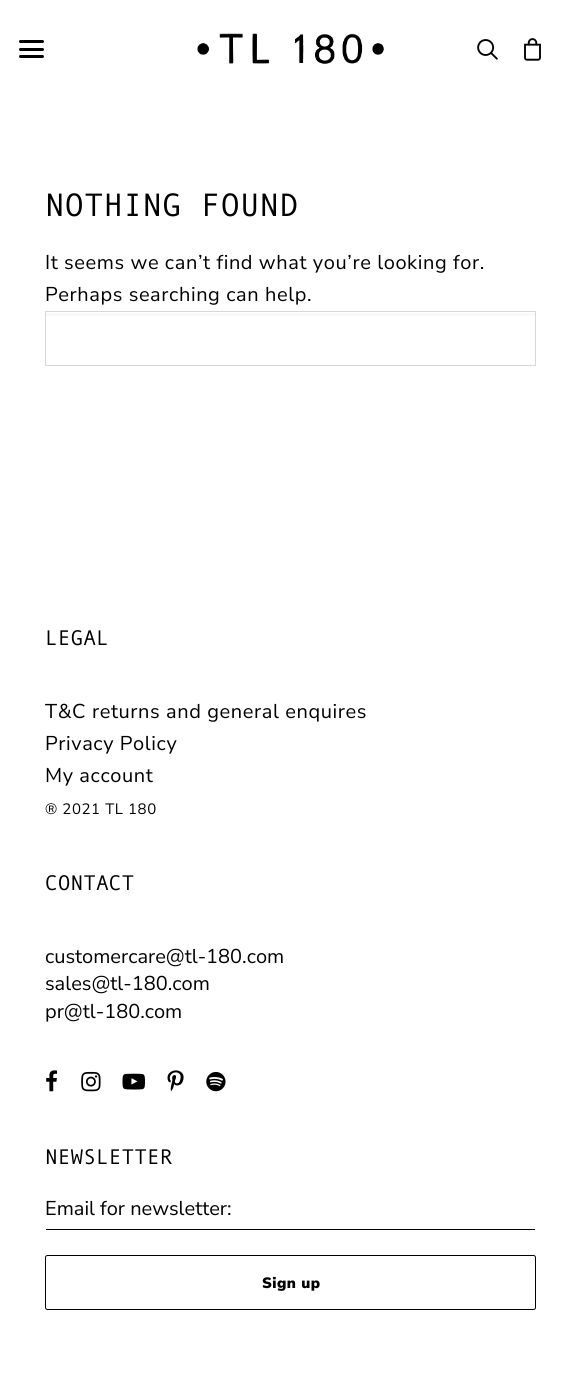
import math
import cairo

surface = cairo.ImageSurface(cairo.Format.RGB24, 581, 1400)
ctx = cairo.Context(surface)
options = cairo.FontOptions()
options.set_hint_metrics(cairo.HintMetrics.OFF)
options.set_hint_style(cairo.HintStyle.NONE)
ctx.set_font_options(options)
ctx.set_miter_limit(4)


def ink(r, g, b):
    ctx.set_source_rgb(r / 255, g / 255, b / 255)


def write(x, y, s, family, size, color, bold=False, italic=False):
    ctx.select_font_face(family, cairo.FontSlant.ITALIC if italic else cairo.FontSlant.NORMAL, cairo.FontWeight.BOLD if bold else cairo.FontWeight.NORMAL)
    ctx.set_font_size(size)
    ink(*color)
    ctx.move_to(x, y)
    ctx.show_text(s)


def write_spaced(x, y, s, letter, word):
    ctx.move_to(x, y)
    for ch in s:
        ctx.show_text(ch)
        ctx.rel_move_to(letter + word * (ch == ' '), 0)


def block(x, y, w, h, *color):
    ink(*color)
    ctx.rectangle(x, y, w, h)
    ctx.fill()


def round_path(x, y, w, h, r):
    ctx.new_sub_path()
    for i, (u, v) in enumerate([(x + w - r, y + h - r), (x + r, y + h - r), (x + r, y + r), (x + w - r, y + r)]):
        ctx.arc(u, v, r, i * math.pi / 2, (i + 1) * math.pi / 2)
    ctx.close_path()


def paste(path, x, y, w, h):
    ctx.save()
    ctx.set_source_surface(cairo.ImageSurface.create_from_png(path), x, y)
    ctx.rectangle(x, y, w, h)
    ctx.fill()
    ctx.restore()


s1 = dict(family="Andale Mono", size=32.5, color=(0, 0, 0))
s2 = dict(family="Andale Mono", size=21.25, color=(0, 0, 0))
s3 = dict(family="Nunito Sans", size=20, color=(0, 0, 0))

ink(255, 255, 255)
ctx.paint()
paste("pic1.png", 197, 33, 187, 31)
ink(0, 0, 0)
round_path(19, 48, 25, 3, 1.5)
ctx.fill()
round_path(19, 40, 25, 3, 1.5)
ctx.fill()
round_path(19, 55, 25, 3, 1.5)
ctx.fill()
paste("pic2.png", 477, 39, 21, 21)
paste("pic3.png", 524, 38, 17, 23)
write(45, 216, "NOTHING FOUND", **s1)
ctx.select_font_face("Nunito Sans")
ctx.set_font_size(20)
write_spaced(45, 269, "It seems we can’t find what you’re looking for.", 0.6, 0)
write_spaced(45, 301, "Perhaps searching can help.", 0.6, 0)
block(46, 313, 489, 3, 249, 249, 249)
ctx.rectangle(45.5, 311.5, 490, 54)
ink(216, 216, 216)
ctx.set_line_width(1)
ctx.stroke()
write(45, 645, "LEGAL", **s2)
ctx.select_font_face("Nunito Sans")
ctx.set_font_size(20)
write_spaced(45, 718, "T&C returns and general enquires", 0.6, 0)
write_spaced(45, 750, "Privacy Policy", 0.6, 0)
write_spaced(45, 782, "My account", 0.6, 0)
ctx.set_font_size(15)
write_spaced(45, 814, "® 2021 TL 180", 0.6, 0)
write(45, 890, "CONTACT", **s2)
write(45, 963, "customercare@tl-180.com", **s3)
write(45, 990, "sales@tl-180.com", **s3)
write(45, 1018, "pr@tl-180.com", **s3)
paste("pic4.png", 46, 1070, 12, 22)
paste("pic5.png", 81, 1071, 20, 21)
paste("pic6.png", 122, 1073, 23, 17)
paste("pic7.png", 167, 1070, 17, 22)
paste("pic8.png", 206, 1072, 20, 20)
write(45, 1164, "NEWSLETTER", **s2)
block(46, 1229, 489, 1, 0, 0, 0)
write(45, 1215, "Email for newsletter:", **s3)
round_path(45.5, 1255.5, 490, 54, 2)
ctx.stroke()
ctx.select_font_face("Nunito Sans Black")
ctx.set_font_size(15)
write_spaced(262, 1288, "Sign up", 0.5, 0)
surface.write_to_png("screenshot.png")
